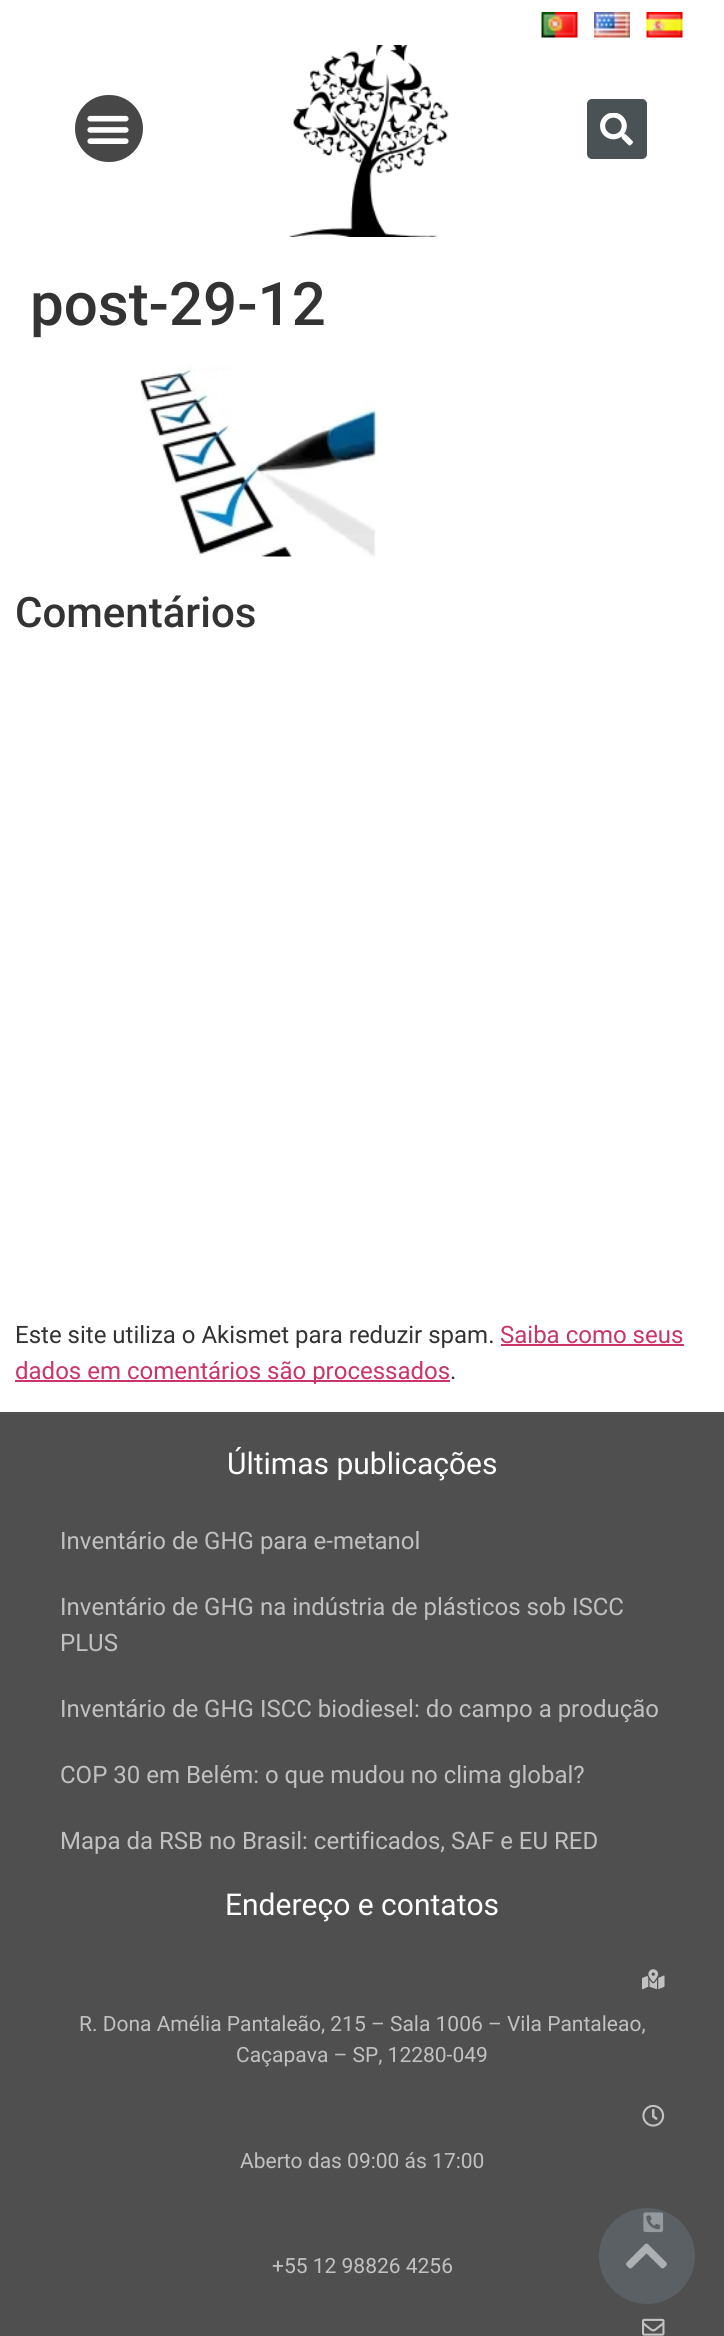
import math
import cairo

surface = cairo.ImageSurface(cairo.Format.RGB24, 724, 2336)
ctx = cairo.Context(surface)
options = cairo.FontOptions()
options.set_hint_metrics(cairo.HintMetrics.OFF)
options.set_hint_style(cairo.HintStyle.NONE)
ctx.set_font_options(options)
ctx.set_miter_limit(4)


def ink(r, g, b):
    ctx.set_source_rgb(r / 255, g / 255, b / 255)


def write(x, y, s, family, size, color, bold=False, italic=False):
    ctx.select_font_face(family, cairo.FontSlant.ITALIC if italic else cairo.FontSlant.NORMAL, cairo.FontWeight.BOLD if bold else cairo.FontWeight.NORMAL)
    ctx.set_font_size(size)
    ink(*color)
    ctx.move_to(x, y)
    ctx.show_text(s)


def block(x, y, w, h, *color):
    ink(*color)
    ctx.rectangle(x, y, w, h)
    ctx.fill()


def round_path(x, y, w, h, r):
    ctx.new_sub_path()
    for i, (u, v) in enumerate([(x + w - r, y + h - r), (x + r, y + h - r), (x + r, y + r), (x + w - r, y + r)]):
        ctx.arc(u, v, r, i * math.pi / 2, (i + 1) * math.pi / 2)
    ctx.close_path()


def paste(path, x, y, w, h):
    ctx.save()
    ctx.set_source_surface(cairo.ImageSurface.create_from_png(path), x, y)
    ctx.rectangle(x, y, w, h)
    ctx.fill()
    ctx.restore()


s1 = dict(family="Roboto Medium", size=60, color=(51, 51, 51))
s2 = dict(family="Roboto Medium", size=42, color=(51, 51, 51))
s3 = dict(family="Roboto", size=24, color=(51, 51, 51))
s4 = dict(family="Roboto", size=24, color=(204, 51, 102))
s5 = dict(family="Roboto", size=30, color=(255, 255, 255))
s6 = dict(family="Roboto", size=24, color=(193, 193, 193))
s7 = dict(family="Roboto", size=21, color=(193, 193, 193))

ink(255, 255, 255)
ctx.paint()
ink(71, 71, 71)
round_path(75, 95, 68, 67, 33.5)
ctx.fill()
paste("pic1.png", 87, 115, 42, 29)
paste("pic2.png", 288, 45, 161, 192)
paste("pic3.png", 541, 12, 37, 26)
paste("pic4.png", 594, 12, 36, 26)
paste("pic5.png", 646, 12, 37, 26)
ink(75, 82, 86)
round_path(587, 99, 60, 60, 5)
ctx.fill()
paste("pic6.png", 600, 113, 33, 33)
write(30, 325, "post-29-12", **s1)
paste("pic7.png", 140, 366, 237, 191)
write(15, 627, "Comentários", **s2)
write(15, 1343, "Este site utiliza o Akismet para reduzir spam.", **s3)
write(500, 1343, "Saiba como seus", **s4)
block(501, 1344, 183, 2, 204, 51, 102)
block(15, 1380, 435, 2, 204, 51, 102)
write(15, 1379, "dados em comentários são processados", **s4)
write(450, 1379, ".", **s3)
block(0, 1412, 724, 924, 79, 79, 79)
write(227, 1474, "Últimas publicações", **s5)
write(60, 1549, "Inventário de GHG para e-metanol", **s6)
write(60, 1615, "Inventário de GHG na indústria de plásticos sob ISCC", **s6)
write(60, 1651, "PLUS", **s6)
write(60, 1717, "Inventário de GHG ISCC biodiesel: do campo a produção", **s6)
write(60, 1783, "COP 30 em Belém: o que mudou no clima global?", **s6)
write(60, 1849, "Mapa da RSB no Brasil: certificados, SAF e EU RED", **s6)
write(225, 1915, "Endereço e contatos", **s5)
paste("pic8.png", 642, 1969, 23, 21)
write(79, 2031, "R. Dona Amélia Pantaleão, 215 – Sala 1006 – Vila Pantaleao,", **s7)
write(236, 2062, "Caçapava – SP, 12280-049", **s7)
paste("pic9.png", 642, 2105, 23, 22)
write(240, 2168, "Aberto das 09:00 ás 17:00", **s7)
paste("pic10.png", 643, 2212, 21, 21)
write(272, 2273, "+55 12 98826 4256", **s7)
ctx.set_source_rgba(0.412, 0.447, 0.49, 0.5)
ctx.new_path()
ctx.arc(647, 2256, 48, 0, 2 * math.pi)
ctx.fill()
paste("pic11.png", 626, 2243, 41, 26)
paste("pic12.png", 642, 2318, 23, 18)
surface.write_to_png("screenshot.png")
